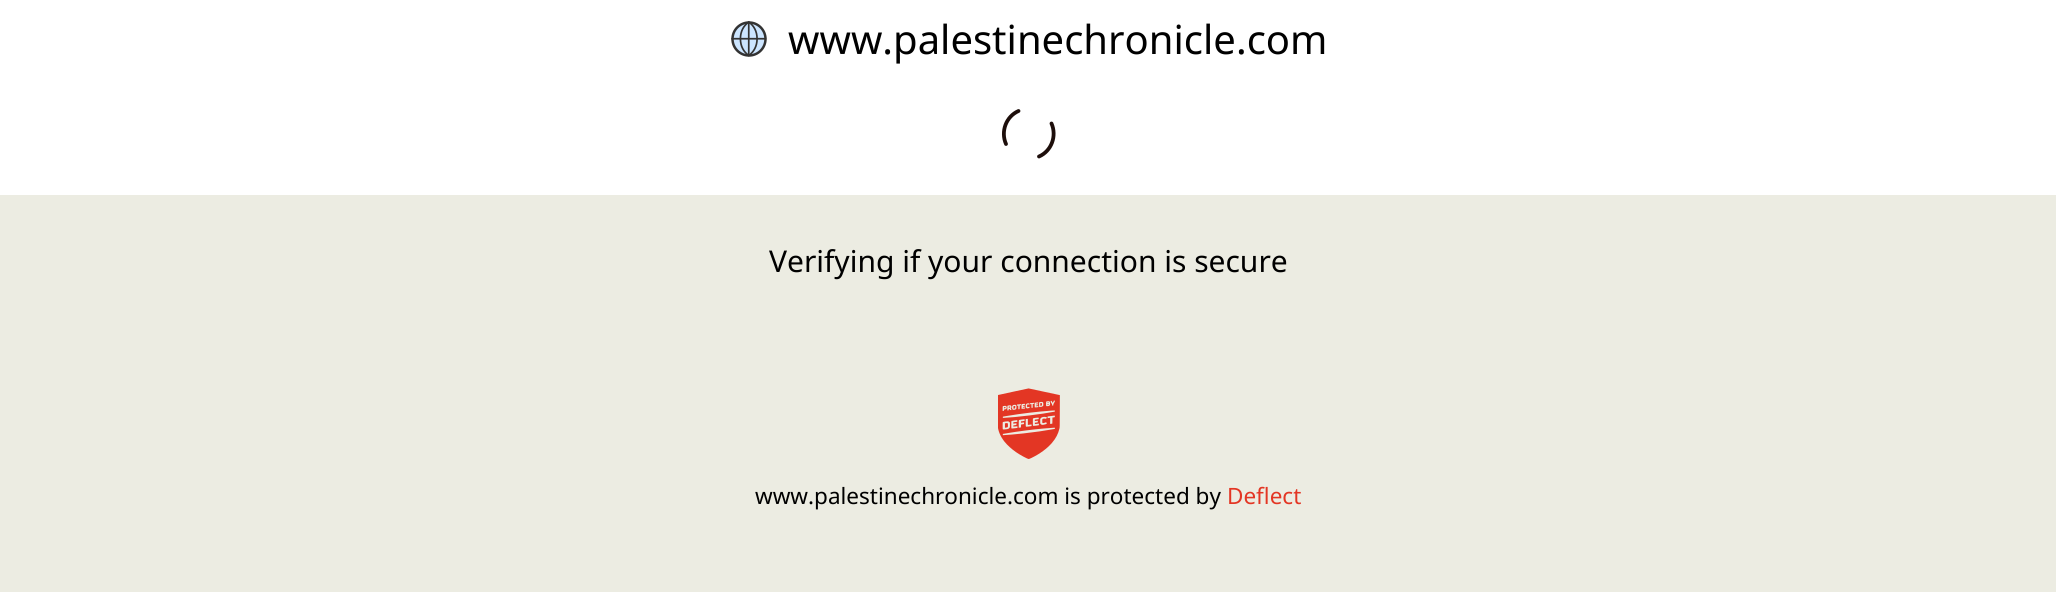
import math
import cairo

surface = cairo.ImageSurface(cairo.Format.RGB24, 2056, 592)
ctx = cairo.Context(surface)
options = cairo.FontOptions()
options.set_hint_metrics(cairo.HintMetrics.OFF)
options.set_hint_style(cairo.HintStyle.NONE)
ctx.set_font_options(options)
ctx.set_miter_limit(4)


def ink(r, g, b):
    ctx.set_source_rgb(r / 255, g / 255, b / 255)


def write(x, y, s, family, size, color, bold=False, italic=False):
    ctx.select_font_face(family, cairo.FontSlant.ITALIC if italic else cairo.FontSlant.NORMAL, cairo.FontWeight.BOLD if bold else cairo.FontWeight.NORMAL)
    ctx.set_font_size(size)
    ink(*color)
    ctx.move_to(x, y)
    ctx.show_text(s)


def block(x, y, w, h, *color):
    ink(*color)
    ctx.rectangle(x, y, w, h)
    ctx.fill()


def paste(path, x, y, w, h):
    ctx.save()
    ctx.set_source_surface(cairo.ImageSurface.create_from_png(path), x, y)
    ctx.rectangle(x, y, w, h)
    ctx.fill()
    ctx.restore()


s1 = dict(family="Noto Sans", size=40, color=(0, 0, 0))
s2 = dict(family="Noto Sans", size=30, color=(0, 0, 0))
s3 = dict(family="Noto Sans", size=22.5, color=(0, 0, 0))
s4 = dict(family="Noto Sans", size=22.5, color=(227, 54, 36))

ink(255, 255, 255)
ctx.paint()
paste("pic1.png", 731, 21, 36, 36)
write(788, 54, "www.palestinechronicle.com", **s1)
ctx.new_path()
ctx.move_to(1006, 144)
ctx.curve_to(1000.5, 131.5, 1006, 116.5, 1018.5, 111)
ctx.move_to(1051.5, 123.5)
ctx.curve_to(1057, 136, 1051.5, 151, 1039, 156.5)
ink(29, 14, 11)
ctx.set_line_width(3.8)
ctx.set_line_cap(cairo.LineCap.ROUND)
ctx.stroke()
block(0, 195, 2056, 397, 236, 236, 226)
write(769, 272, "Verifying if your connection is secure", **s2)
paste("pic2.png", 998, 388, 62, 71)
write(755, 504, "www.palestinechronicle.com is protected by", **s3)
write(1227, 504, "Deflect", **s4)
surface.write_to_png("screenshot.png")
